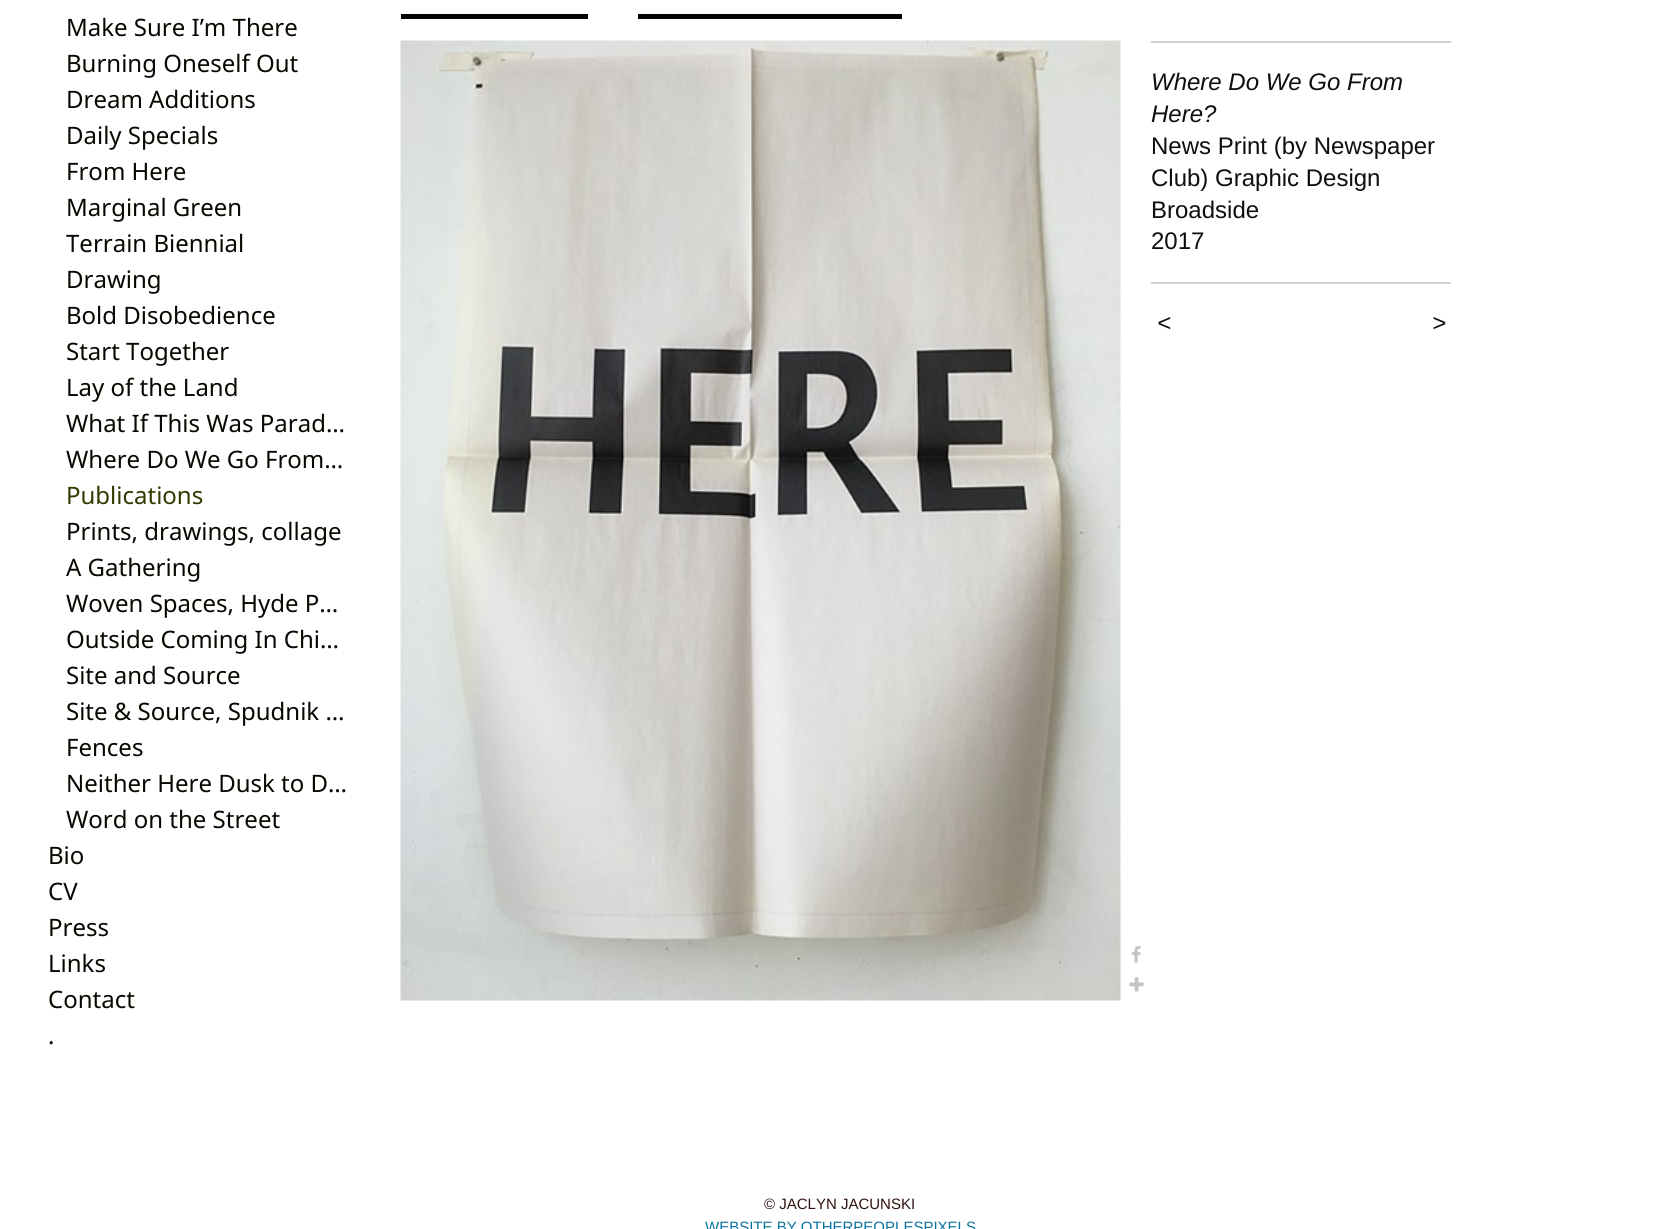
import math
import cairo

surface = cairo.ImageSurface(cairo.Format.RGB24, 1679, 1229)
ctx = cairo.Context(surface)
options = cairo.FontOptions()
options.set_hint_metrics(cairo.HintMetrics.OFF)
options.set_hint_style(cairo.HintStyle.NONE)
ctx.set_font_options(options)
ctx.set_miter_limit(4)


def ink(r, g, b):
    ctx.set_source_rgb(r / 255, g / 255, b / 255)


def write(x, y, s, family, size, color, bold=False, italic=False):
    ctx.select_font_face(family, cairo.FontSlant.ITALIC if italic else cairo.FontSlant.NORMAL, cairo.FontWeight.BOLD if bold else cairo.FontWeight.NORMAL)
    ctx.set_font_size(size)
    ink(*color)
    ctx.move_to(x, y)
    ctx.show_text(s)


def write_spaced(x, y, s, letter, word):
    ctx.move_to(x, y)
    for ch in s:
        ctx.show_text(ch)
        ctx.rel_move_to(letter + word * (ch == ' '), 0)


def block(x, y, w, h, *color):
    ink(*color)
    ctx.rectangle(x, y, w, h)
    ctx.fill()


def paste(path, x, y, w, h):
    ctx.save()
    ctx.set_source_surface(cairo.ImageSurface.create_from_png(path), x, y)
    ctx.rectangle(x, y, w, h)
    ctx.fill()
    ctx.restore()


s1 = dict(family="Noto Sans", size=24, color=(7, 9, 0))
s2 = dict(family="Noto Sans", size=24, color=(47, 60, 0))
s3 = dict(family="Liberation Sans", size=24, color=(17, 14, 14), italic=True)
s4 = dict(family="Liberation Sans", size=24, color=(17, 14, 14))
s5 = dict(family="Liberation Sans", size=15, color=(50, 17, 17))
s6 = dict(family="Liberation Sans", size=15, color=(12, 114, 157))

ink(255, 255, 255)
ctx.paint()
write(66, 36, "Make Sure I’m There", **s1)
write(66, 72, "Burning Oneself Out", **s1)
write(66, 108, "Dream Additions", **s1)
write(66, 144, "Daily Specials", **s1)
write(66, 180, "From Here", **s1)
write(66, 216, "Marginal Green", **s1)
write(66, 252, "Terrain Biennial", **s1)
write(66, 288, "Drawing", **s1)
write(66, 324, "Bold Disobedience", **s1)
write(66, 360, "Start Together", **s1)
write(66, 396, "Lay of the Land", **s1)
write(66, 432, "What If This Was Parad…", **s1)
write(66, 468, "Where Do We Go From…", **s1)
write(66, 504, "Publications", **s2)
write(66, 540, "Prints, drawings, collage", **s1)
write(66, 576, "A Gathering", **s1)
write(66, 612, "Woven Spaces, Hyde P…", **s1)
write(66, 648, "Outside Coming In Chi…", **s1)
write(66, 684, "Site and Source", **s1)
write(66, 720, "Site & Source, Spudnik …", **s1)
write(66, 756, "Fences", **s1)
write(66, 792, "Neither Here Dusk to D…", **s1)
write(66, 828, "Word on the Street", **s1)
write(48, 864, "Bio", **s1)
write(48, 900, "CV", **s1)
write(48, 936, "Press", **s1)
write(48, 972, "Links", **s1)
write(48, 1008, "Contact", **s1)
write(48, 1044, ".", **s1)
block(401, 14, 187, 5, 7, 0, 0)
block(638, 14, 264, 5, 7, 0, 0)
paste("pic1.png", 400, 40, 721, 961)
paste("pic2.png", 1132, 946, 9, 17)
paste("pic3.png", 1129, 977, 15, 15)
block(1151, 41, 300, 2, 207, 207, 207)
write(1151, 90, "Where Do We Go From", **s3)
write(1151, 122, "Here?", **s3)
write(1151, 154, "News Print (by Newspaper", **s4)
write(1151, 186, "Club) Graphic Design", **s4)
write(1151, 218, "Broadside", **s4)
write(1151, 249, "2017", **s4)
block(1151, 282, 300, 2, 207, 207, 207)
ctx.select_font_face("Liberation Sans", cairo.FontSlant.ITALIC)
ink(17, 14, 14)
write_spaced(1157, 331, "<", 2, 0)
write_spaced(1432, 331, ">", 2, 0)
write(764, 1209, "© JACLYN JACUNSKI", **s5)
write(705, 1232, "WEBSITE BY OTHERPEOPLESPIXELS", **s6)
surface.write_to_png("screenshot.png")
